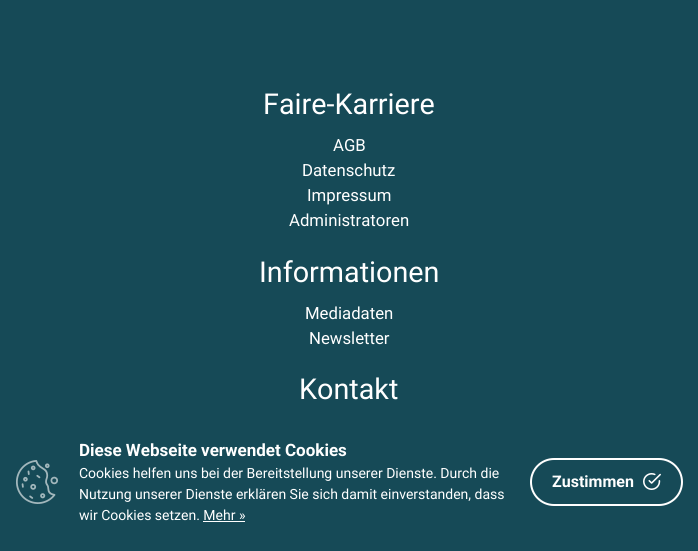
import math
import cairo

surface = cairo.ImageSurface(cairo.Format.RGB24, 698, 551)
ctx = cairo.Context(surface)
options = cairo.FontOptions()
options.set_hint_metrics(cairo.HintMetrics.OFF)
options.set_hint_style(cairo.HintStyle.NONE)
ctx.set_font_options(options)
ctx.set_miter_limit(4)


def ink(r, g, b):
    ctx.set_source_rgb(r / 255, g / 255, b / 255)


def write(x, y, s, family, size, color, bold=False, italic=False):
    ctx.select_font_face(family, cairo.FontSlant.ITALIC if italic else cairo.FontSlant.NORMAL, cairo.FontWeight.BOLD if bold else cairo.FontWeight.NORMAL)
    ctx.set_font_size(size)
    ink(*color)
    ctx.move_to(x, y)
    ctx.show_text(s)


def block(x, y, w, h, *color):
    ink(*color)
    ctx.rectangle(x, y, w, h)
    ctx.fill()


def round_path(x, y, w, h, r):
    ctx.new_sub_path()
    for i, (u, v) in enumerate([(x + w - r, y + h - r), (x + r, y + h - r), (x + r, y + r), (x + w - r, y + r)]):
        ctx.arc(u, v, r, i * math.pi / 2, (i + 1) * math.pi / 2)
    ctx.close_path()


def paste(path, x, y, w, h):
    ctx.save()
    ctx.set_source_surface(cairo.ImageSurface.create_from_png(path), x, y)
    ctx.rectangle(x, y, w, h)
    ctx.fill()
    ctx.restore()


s1 = dict(family="Roboto", size=28.75, color=(255, 255, 255))
s2 = dict(family="Roboto", size=16.75, color=(255, 255, 255))
s3 = dict(family="Roboto", size=17, color=(255, 255, 255), bold=True)
s4 = dict(family="Roboto", size=14, color=(255, 255, 255))
s5 = dict(family="Roboto", size=16, color=(255, 255, 255), bold=True)

ink(22, 74, 87)
ctx.paint()
write(263, 114, "Faire-Karriere", **s1)
write(333, 151, "AGB", **s2)
write(302, 176, "Datenschutz", **s2)
write(307, 201, "Impressum", **s2)
write(289, 226, "Administratoren", **s2)
write(259, 282, "Informationen", **s1)
write(305, 319, "Mediadaten", **s2)
write(309, 344, "Newsletter", **s2)
write(299, 399, "Kontakt", **s1)
paste("pic1.png", 16, 460, 42, 44)
write(79, 456, "Diese Webseite verwendet Cookies", **s3)
write(79, 478, "Cookies helfen uns bei der Bereitstellung unserer Dienste. Durch die", **s4)
write(79, 499, "Nutzung unserer Dienste erklären Sie sich damit einverstanden, dass", **s4)
write(79, 520, "wir Cookies setzen. Mehr »", **s4)
block(203, 521, 42, 1, 255, 255, 255)
round_path(531, 459, 151, 46, 23)
ctx.stroke()
write(552, 487, "Zustimmen", **s5)
paste("pic2.png", 643, 473, 18, 17)
surface.write_to_png("screenshot.png")
